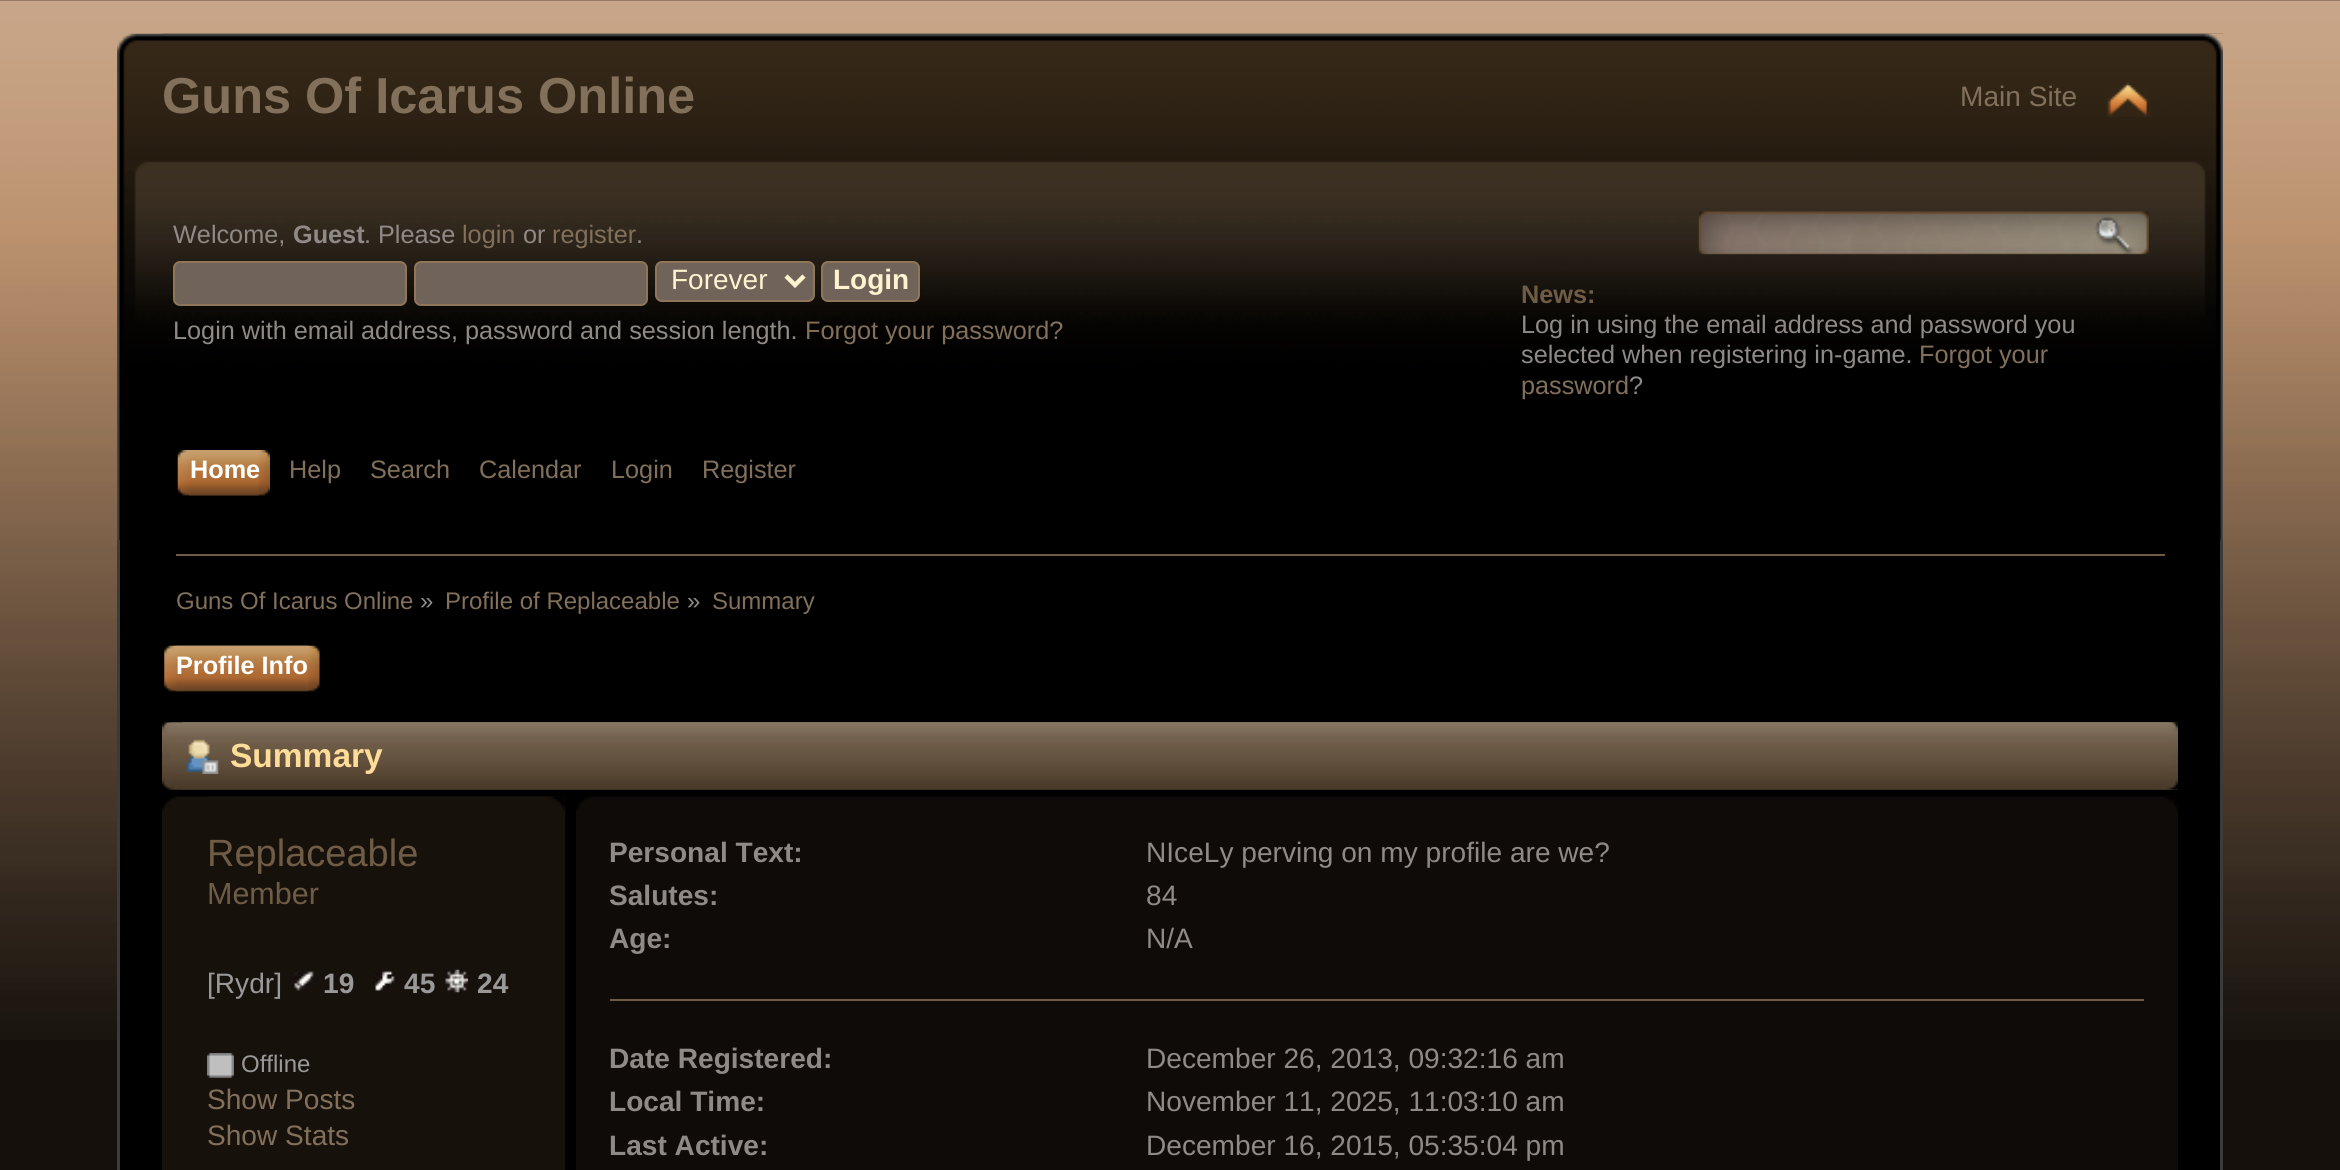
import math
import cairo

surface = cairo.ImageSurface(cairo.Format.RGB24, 2340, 1170)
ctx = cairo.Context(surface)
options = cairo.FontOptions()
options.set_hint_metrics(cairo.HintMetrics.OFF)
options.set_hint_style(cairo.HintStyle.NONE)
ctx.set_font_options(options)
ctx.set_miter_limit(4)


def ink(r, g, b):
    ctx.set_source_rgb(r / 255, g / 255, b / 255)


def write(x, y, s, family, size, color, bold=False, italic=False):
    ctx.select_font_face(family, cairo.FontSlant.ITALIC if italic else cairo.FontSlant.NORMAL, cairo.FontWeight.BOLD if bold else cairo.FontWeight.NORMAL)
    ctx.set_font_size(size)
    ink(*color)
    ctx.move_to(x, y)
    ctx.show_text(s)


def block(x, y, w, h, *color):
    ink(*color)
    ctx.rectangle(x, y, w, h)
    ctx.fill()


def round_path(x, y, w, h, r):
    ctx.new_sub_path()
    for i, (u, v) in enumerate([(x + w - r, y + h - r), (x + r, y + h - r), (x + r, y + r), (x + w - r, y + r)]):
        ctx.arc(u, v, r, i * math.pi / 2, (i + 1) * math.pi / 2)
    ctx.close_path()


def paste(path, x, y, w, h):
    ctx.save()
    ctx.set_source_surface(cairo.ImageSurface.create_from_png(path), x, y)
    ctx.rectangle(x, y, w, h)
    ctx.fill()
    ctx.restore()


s1 = dict(family="Liberation Sans", size=50.5, color=(130, 112, 91), bold=True)
s2 = dict(family="Liberation Sans", size=28.1, color=(130, 112, 91))
s3 = dict(family="Liberation Sans", size=25.25, color=(143, 138, 134))
s4 = dict(family="Liberation Sans", size=25.25, color=(143, 138, 134), bold=True)
s5 = dict(family="Liberation Sans", size=25.25, color=(130, 112, 91))
s6 = dict(family="Liberation Sans", size=28, color=(255, 242, 207))
s7 = dict(family="Liberation Sans", size=28, color=(255, 242, 207), bold=True)
s8 = dict(family="Liberation Sans", size=25.25, color=(111, 92, 69), bold=True)
s9 = dict(family="Liberation Sans", size=25.25, color=(255, 255, 255), bold=True)
s10 = dict(family="Liberation Sans", size=24, color=(130, 112, 91))
s11 = dict(family="Liberation Sans", size=24, color=(143, 138, 134))
s12 = dict(family="Liberation Sans", size=33.5, color=(255, 221, 153), bold=True)
s13 = dict(family="Liberation Sans", size=38, color=(111, 92, 69))
s14 = dict(family="Liberation Sans", size=30.5, color=(111, 92, 69))
s15 = dict(family="Liberation Sans", size=28.1, color=(153, 153, 153))
s16 = dict(family="Liberation Sans", size=28.1, color=(153, 153, 153), bold=True)
s17 = dict(family="Liberation Sans", size=24, color=(153, 153, 153))
s18 = dict(family="Liberation Sans", size=28.1, color=(143, 138, 134), bold=True)
s19 = dict(family="Liberation Sans", size=28.1, color=(143, 138, 134))

ink(21, 16, 12)
ctx.paint()
paste("pic1.png", 0, 0, 2340, 1040)
paste("pic2.png", 117, 33, 2106, 507)
paste("pic3.png", 162, 33, 2061, 507)
write(162, 113, "Guns Of Icarus Online", **s1)
write(1960, 106, "Main Site", **s2)
paste("pic4.png", 2106, 82, 45, 35)
write(173, 243, "Welcome,", **s3)
write(293, 243, "Guest", **s4)
write(364, 243, ". Please", **s3)
write(462, 243, "login", **s5)
write(523, 243, "or", **s3)
write(552, 243, "register", **s5)
write(636, 243, ".", **s3)
ink(111, 99, 90)
round_path(174, 262, 232, 43, 6)
ctx.fill_preserve()
ink(143, 118, 89)
ctx.stroke()
ink(111, 99, 90)
round_path(415, 262, 232, 43, 6)
ctx.fill_preserve()
ink(143, 118, 89)
ctx.stroke()
ink(111, 99, 90)
round_path(656, 262, 158, 39, 6)
ctx.fill_preserve()
ink(143, 118, 89)
ctx.stroke()
ctx.new_path()
ctx.move_to(786, 276)
ctx.line_to(795, 285)
ctx.line_to(804, 276)
ink(255, 242, 207)
ctx.set_line_width(4.5)
ctx.stroke()
write(671, 289, "Forever", **s6)
ink(111, 99, 90)
round_path(822, 262, 97, 39, 6)
ctx.fill_preserve()
ink(143, 118, 89)
ctx.set_line_width(2)
ctx.stroke()
write(833, 289, "Login", **s7)
write(173, 339, "Login with email address, password and session length.", **s3)
write(805, 339, "Forgot your password?", **s5)
paste("pic5.png", 1698, 211, 451, 44)
write(1521, 303, "News:", **s8)
write(1521, 333, "Log in using the email address and password you", **s3)
write(1521, 363, "selected when registering in-game.", **s3)
write(1919, 363, "Forgot your", **s5)
write(1521, 394, "password", **s5)
write(1629, 394, "?", **s3)
paste("pic6.png", 189, 450, 81, 46)
paste("pic7.png", 177, 450, 82, 46)
write(190, 478, "Home", **s9)
write(289, 478, "Help", **s5)
write(370, 478, "Search", **s5)
write(479, 478, "Calendar", **s5)
write(611, 478, "Login", **s5)
write(702, 478, "Register", **s5)
block(120, 540, 2100, 630, 0, 0, 0)
block(117, 540, 3, 630, 59, 59, 59)
block(2220, 540, 3, 630, 59, 59, 59)
block(176, 554, 1989, 2, 111, 92, 69)
write(176, 609, "Guns Of Icarus Online", **s10)
write(420, 609, "»", **s11)
write(445, 609, "Profile of Replaceable", **s10)
write(687, 609, "»", **s11)
write(712, 609, "Summary", **s10)
paste("pic8.png", 175, 645, 145, 47)
paste("pic9.png", 164, 645, 145, 47)
write(176, 674, "Profile Info", **s9)
paste("pic10.png", 162, 722, 2016, 68)
paste("pic11.png", 182, 722, 1996, 68)
paste("pic12.png", 186, 739, 33, 35)
write(230, 767, "Summary", **s12)
block(162, 797, 403, 373, 23, 17, 12)
paste("pic13.png", 162, 796, 403, 15)
paste("pic14.png", 207, 796, 358, 15)
write(207, 866, "Replaceable", **s13)
write(207, 904, "Member", **s14)
write(207, 993, "[Rydr]", **s15)
paste("pic15.png", 292, 970, 23, 21)
write(323, 993, "19", **s16)
paste("pic16.png", 374, 970, 21, 22)
write(404, 993, "45", **s16)
paste("pic17.png", 445, 969, 23, 24)
write(477, 993, "24", **s16)
paste("pic18.png", 207, 1053, 27, 25)
write(241, 1072, "Offline", **s17)
write(207, 1109, "Show Posts", **s2)
write(207, 1145, "Show Stats", **s2)
block(576, 811, 1602, 359, 15, 11, 8)
paste("pic19.png", 576, 796, 1602, 15)
paste("pic20.png", 2164, 797, 14, 14)
block(610, 999, 1534, 2, 111, 92, 69)
write(609, 862, "Personal Text:", **s18)
write(1146, 862, "NIceLy perving on my profile are we?", **s19)
write(609, 905, "Salutes:", **s18)
write(1146, 905, "84", **s19)
write(609, 948, "Age:", **s18)
write(1146, 948, "N/A", **s19)
write(609, 1068, "Date Registered:", **s18)
write(1146, 1068, "December 26, 2013, 09:32:16 am", **s19)
write(609, 1111, "Local Time:", **s18)
write(1146, 1111, "November 11, 2025, 11:03:10 am", **s19)
write(609, 1155, "Last Active:", **s18)
write(1146, 1155, "December 16, 2015, 05:35:04 pm", **s19)
surface.write_to_png("screenshot.png")
